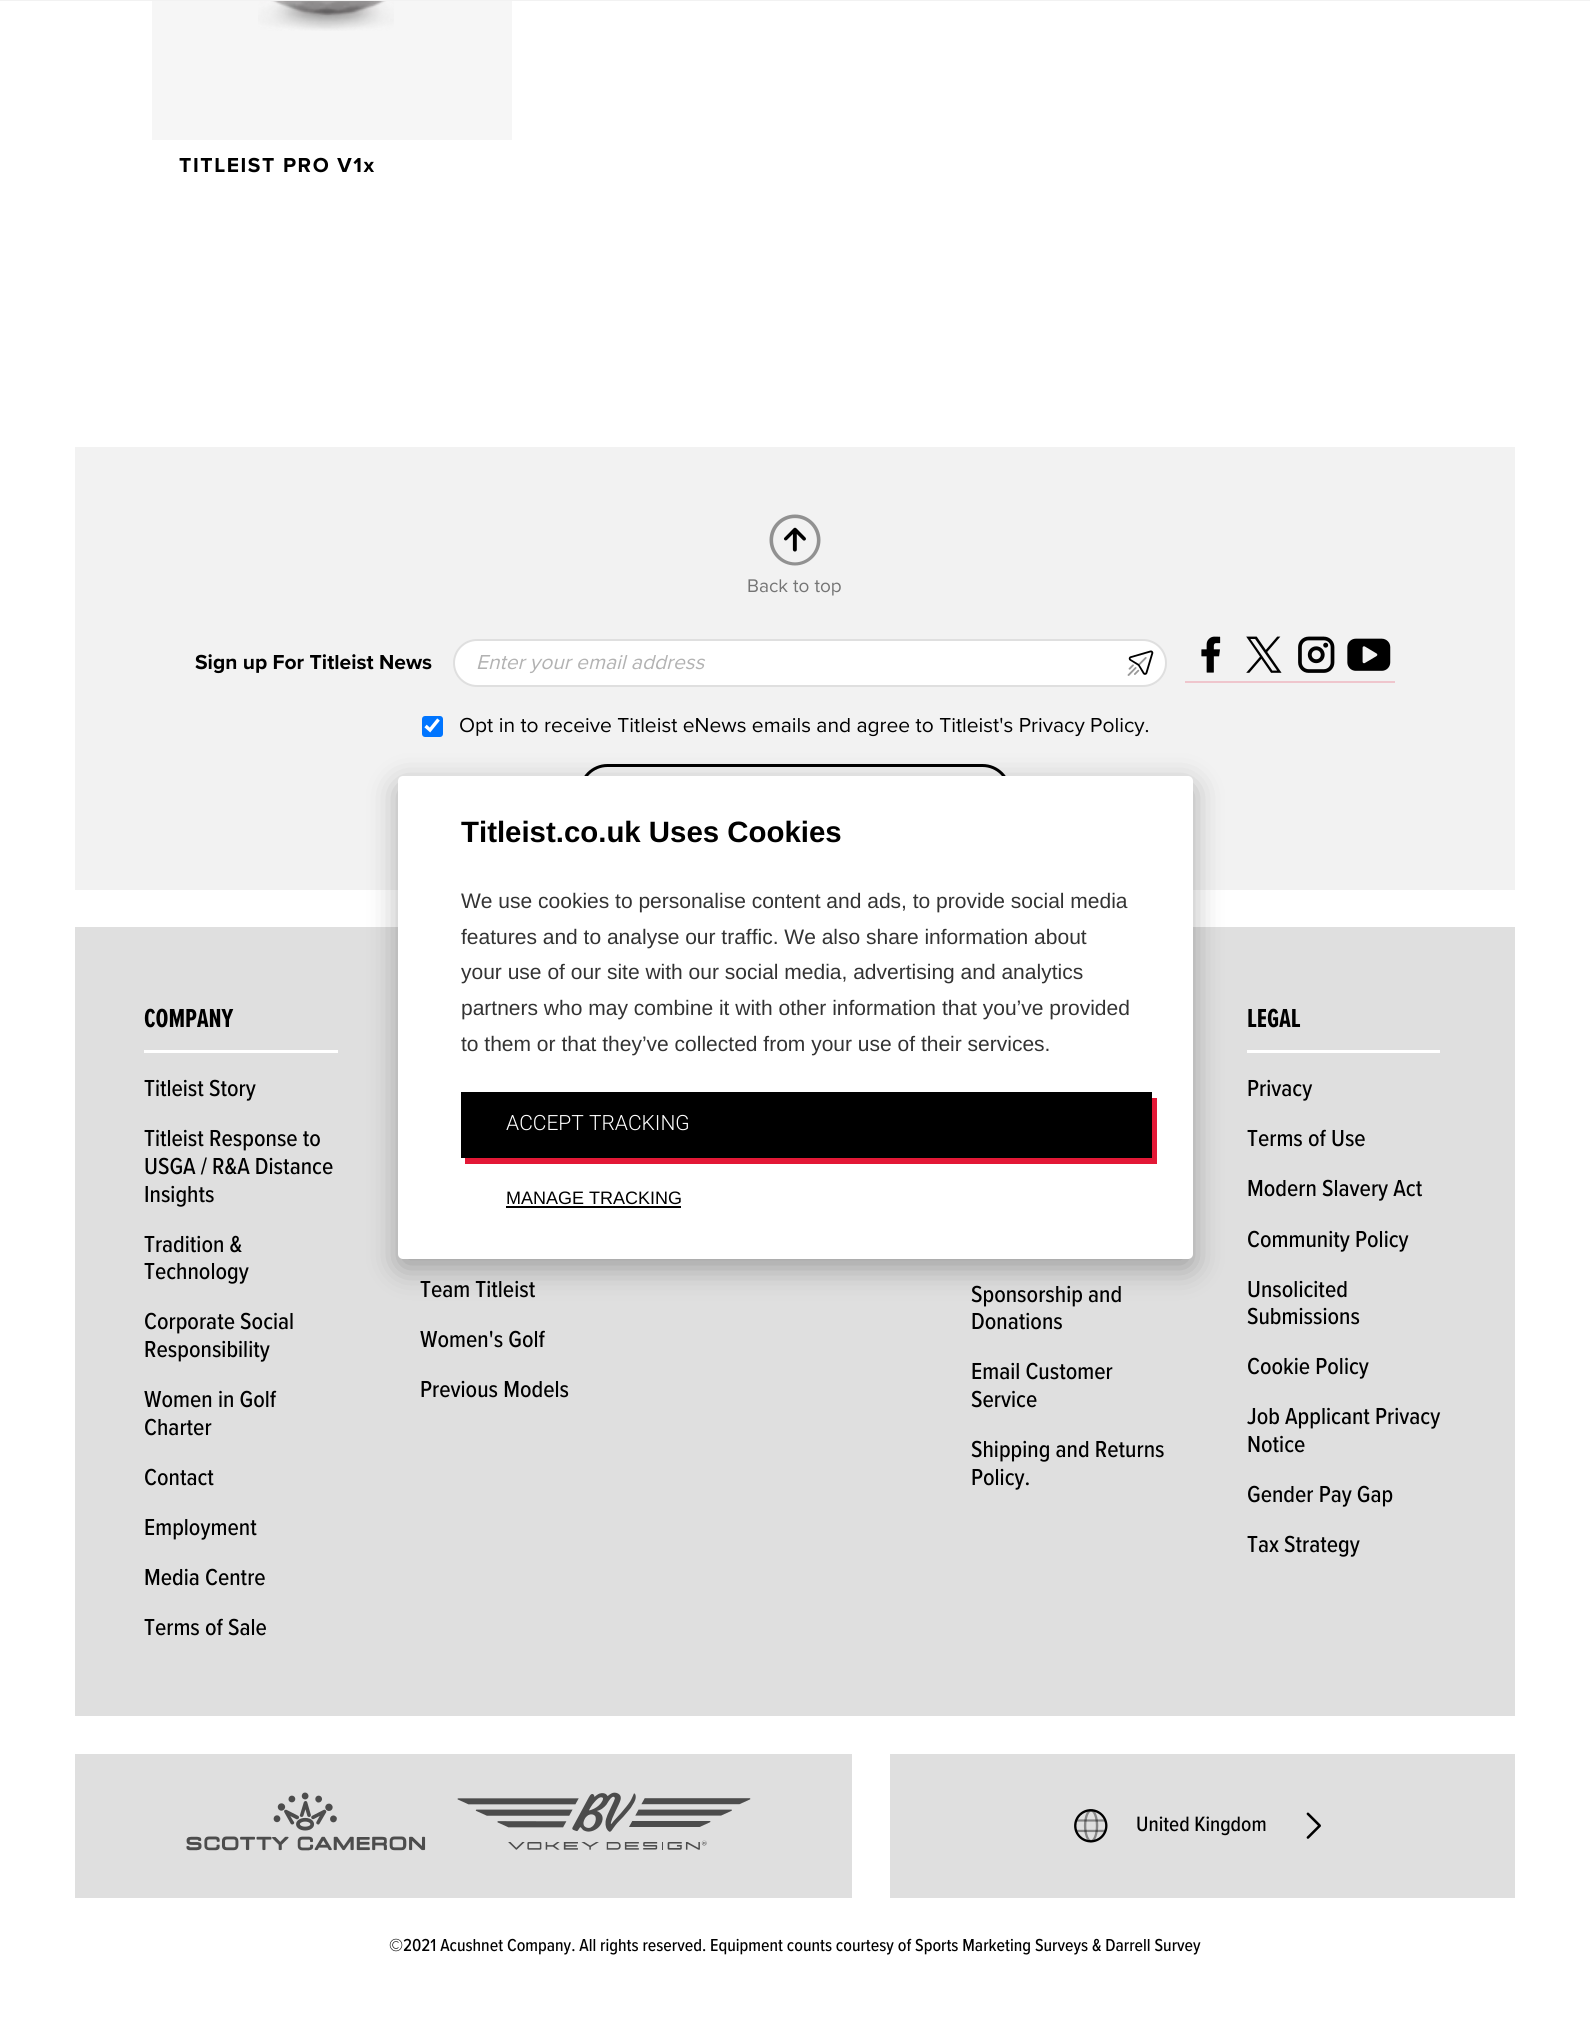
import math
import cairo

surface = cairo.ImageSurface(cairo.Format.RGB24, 1590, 2034)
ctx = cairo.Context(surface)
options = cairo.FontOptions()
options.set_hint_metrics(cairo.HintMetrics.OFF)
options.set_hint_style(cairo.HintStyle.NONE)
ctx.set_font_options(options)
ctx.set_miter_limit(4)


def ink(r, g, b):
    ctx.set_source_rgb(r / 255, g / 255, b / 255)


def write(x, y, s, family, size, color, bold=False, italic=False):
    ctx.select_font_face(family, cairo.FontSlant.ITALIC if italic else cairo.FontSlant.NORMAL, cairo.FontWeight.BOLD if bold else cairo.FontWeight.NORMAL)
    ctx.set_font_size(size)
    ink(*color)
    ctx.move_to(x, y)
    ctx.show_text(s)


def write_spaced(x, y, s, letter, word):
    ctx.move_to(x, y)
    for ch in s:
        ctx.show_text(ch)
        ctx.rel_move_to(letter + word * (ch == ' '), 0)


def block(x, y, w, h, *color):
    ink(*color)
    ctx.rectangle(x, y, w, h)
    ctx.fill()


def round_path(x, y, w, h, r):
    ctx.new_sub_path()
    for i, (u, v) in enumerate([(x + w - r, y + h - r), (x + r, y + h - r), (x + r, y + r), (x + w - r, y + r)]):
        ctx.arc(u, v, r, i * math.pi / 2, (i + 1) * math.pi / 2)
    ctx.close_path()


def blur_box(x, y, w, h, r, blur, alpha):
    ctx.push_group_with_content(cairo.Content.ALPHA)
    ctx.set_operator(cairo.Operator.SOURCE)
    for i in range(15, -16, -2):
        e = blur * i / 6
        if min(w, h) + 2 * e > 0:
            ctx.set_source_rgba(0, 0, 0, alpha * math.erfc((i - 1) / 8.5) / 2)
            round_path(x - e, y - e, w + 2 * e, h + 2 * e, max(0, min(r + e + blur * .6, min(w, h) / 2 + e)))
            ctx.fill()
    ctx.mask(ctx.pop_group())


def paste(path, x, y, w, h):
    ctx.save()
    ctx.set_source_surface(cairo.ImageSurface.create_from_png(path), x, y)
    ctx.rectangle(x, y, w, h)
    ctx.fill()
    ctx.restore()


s1 = dict(family="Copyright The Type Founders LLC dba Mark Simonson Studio", size=19, color=(117, 117, 117))
s2 = dict(family="Copyright The Type Founders LLC dba Mark Simonson Studio", size=21, color=(0, 0, 0), bold=True)
s3 = dict(family="Copyright The Type Founders LLC dba Mark Simonson Studio", size=21, color=(178, 178, 178), italic=True)
s4 = dict(family="Copyright The Type Founders LLC dba Mark Simonson Studio", size=21, color=(0, 0, 0))
s5 = dict(family="Liberation Sans", size=29.4, color=(0, 0, 0), bold=True)
s6 = dict(family="Liberation Sans", size=21, color=(51, 51, 51))
s7 = dict(family="Roboto Light", size=21, color=(255, 255, 255))
s8 = dict(family="Liberation Sans", size=18, color=(0, 0, 0))
s9 = dict(family="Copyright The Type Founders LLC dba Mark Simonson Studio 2", size=27, color=(0, 0, 0), bold=True)
s10 = dict(family="Copyright The Type Founders LLC dba Mark Simonson Studio Medium", size=24, color=(0, 0, 0))
s11 = dict(family="Copyright The Type Founders LLC dba Mark Simonson Studio Medium", size=21.5, color=(0, 0, 0))
s12 = dict(family="Copyright The Type Founders LLC dba Mark Simonson Studio Medium", size=18, color=(0, 0, 0))

ink(255, 255, 255)
ctx.paint()
block(0, 0, 1590, 1, 242, 242, 242)
block(152, 1, 360, 139, 246, 246, 246)
paste("pic1.png", 258, 1, 136, 30)
ctx.select_font_face("Copyright The Type Founders LLC dba Mark Simonson Studio", cairo.FontSlant.NORMAL, cairo.FontWeight.BOLD)
ctx.set_font_size(21)
ink(0, 0, 0)
write_spaced(179, 172, "TITLEIST PRO V1x", 1.6, 0)
block(75, 447, 1440, 443, 242, 242, 242)
paste("pic2.png", 769, 514, 52, 52)
write(747, 592, "Back to top", **s1)
write(195, 669, "Sign up For Titleist News", **s2)
ink(255, 255, 255)
round_path(454, 640, 712, 46, 23)
ctx.fill_preserve()
ink(223, 223, 223)
ctx.stroke()
write(476, 669, "Enter your email address", **s3)
paste("pic3.png", 1127, 650, 27, 26)
paste("pic4.png", 1201, 636, 20, 37)
block(1185, 681, 210, 2, 239, 198, 205)
paste("pic5.png", 1246, 636, 36, 37)
paste("pic6.png", 1298, 636, 37, 37)
paste("pic7.png", 1347, 638, 44, 33)
ink(0, 117, 255)
round_path(422, 716, 21, 21, 3)
ctx.fill()
ctx.new_path()
ctx.move_to(425.5, 726)
ctx.line_to(430, 730)
ctx.line_to(438.5, 719.5)
ink(255, 255, 255)
ctx.set_line_width(3.4)
ctx.stroke()
write(459, 732, "Opt in to receive Titleist eNews emails and agree to Titleist's Privacy Policy.", **s4)
round_path(580.5, 765.5, 429, 54, 27)
ctx.set_line_width(3)
ctx.stroke()
block(75, 927, 1440, 789, 223, 223, 223)
ink(0, 0, 0)
blur_box(398, 785, 795, 483, 5, 15, 0.3)
ink(255, 255, 255)
round_path(398, 776, 795, 483, 5)
ctx.fill()
write(461, 842, "Titleist.co.uk Uses Cookies", **s5)
write(461, 908, "We use cookies to personalise content and ads, to provide social media", **s6)
write(461, 944, "features and to analyse our traffic. We also share information about", **s6)
write(461, 979, "your use of our site with our social media, advertising and analytics", **s6)
write(461, 1015, "partners who may combine it with other information that you’ve provided", **s6)
write(461, 1051, "to them or that they’ve collected from your use of their services.", **s6)
ink(227, 24, 54)
ctx.new_path()
ctx.move_to(465, 1158)
ctx.line_to(465, 1164)
ctx.line_to(1157, 1164)
ctx.line_to(1157, 1098)
ctx.line_to(1152, 1098)
ctx.line_to(1152, 1158)
ctx.close_path()
ctx.fill()
block(461, 1092, 691, 66, 0, 0, 0)
write(506, 1130, "ACCEPT TRACKING", **s7)
write(506, 1204, "MANAGE TRACKING", **s8)
block(506, 1206, 175, 2, 0, 0, 0)
block(144, 1050, 194, 3, 255, 255, 255)
write(144, 1027, "COMPANY", **s9)
write(144, 1096, "Titleist Story", **s10)
write(144, 1146, "Titleist Response to", **s10)
write(144, 1174, "USGA / R&A Distance", **s10)
write(144, 1202, "Insights", **s10)
write(144, 1252, "Tradition &", **s10)
write(144, 1279, "Technology", **s10)
write(144, 1329, "Corporate Social", **s10)
write(144, 1357, "Responsibility", **s10)
write(144, 1407, "Women in Golf", **s10)
write(144, 1435, "Charter", **s10)
write(144, 1485, "Contact", **s10)
write(144, 1535, "Employment", **s10)
write(144, 1585, "Media Centre", **s10)
write(144, 1635, "Terms of Sale", **s10)
write(420, 1297, "Team Titleist", **s10)
write(420, 1347, "Women's Golf", **s10)
write(420, 1397, "Previous Models", **s10)
write(971, 1302, "Sponsorship and", **s10)
write(971, 1329, "Donations", **s10)
write(971, 1379, "Email Customer", **s10)
write(971, 1407, "Service", **s10)
write(971, 1457, "Shipping and Returns", **s10)
write(971, 1485, "Policy.", **s10)
block(1247, 1050, 193, 3, 255, 255, 255)
write(1247, 1027, "LEGAL", **s9)
write(1247, 1096, "Privacy", **s10)
write(1247, 1146, "Terms of Use", **s10)
write(1247, 1196, "Modern Slavery Act", **s10)
write(1247, 1247, "Community Policy", **s10)
write(1247, 1297, "Unsolicited", **s10)
write(1247, 1324, "Submissions", **s10)
write(1247, 1374, "Cookie Policy", **s10)
write(1247, 1424, "Job Applicant Privacy", **s10)
write(1247, 1452, "Notice", **s10)
write(1247, 1502, "Gender Pay Gap", **s10)
write(1247, 1552, "Tax Strategy", **s10)
block(75, 1754, 777, 144, 223, 223, 223)
paste("pic8.png", 186, 1792, 240, 59)
paste("pic9.png", 457, 1792, 294, 58)
block(890, 1754, 625, 144, 223, 223, 223)
paste("pic10.png", 1074, 1809, 34, 34)
write(1136, 1831, "United Kingdom", **s11)
paste("pic11.png", 1306, 1812, 15, 27)
write(389, 1951, "©2021 Acushnet Company. All rights reserved. Equipment counts courtesy of Sports Marketing Surveys & Darrell Survey", **s12)
surface.write_to_png("screenshot.png")
